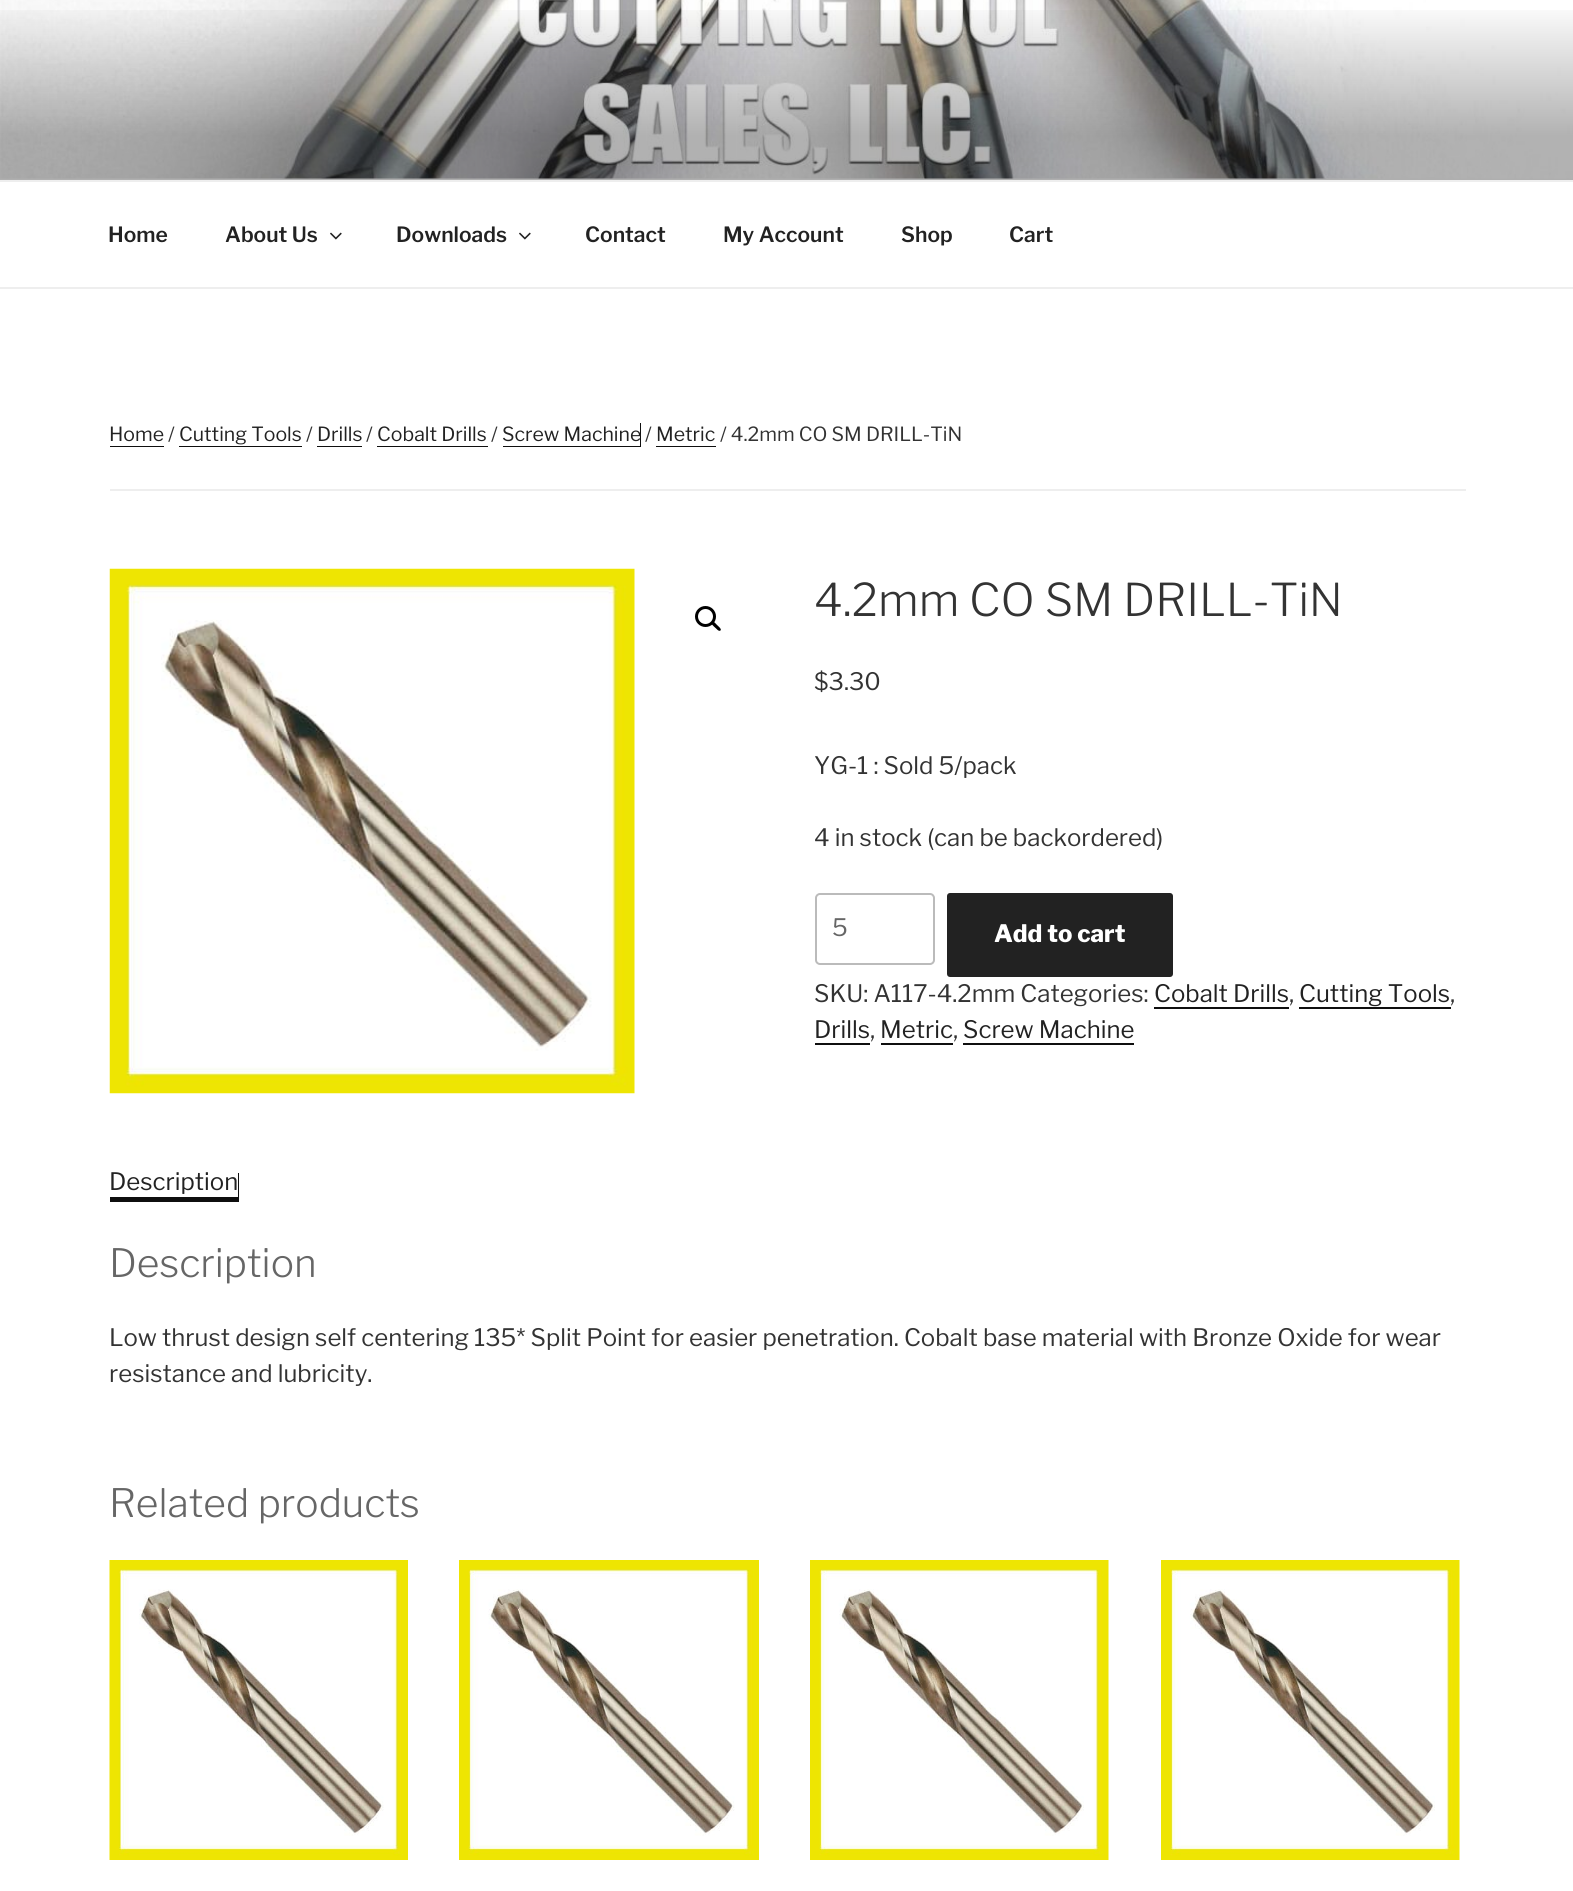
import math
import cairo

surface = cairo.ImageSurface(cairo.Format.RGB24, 1573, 1891)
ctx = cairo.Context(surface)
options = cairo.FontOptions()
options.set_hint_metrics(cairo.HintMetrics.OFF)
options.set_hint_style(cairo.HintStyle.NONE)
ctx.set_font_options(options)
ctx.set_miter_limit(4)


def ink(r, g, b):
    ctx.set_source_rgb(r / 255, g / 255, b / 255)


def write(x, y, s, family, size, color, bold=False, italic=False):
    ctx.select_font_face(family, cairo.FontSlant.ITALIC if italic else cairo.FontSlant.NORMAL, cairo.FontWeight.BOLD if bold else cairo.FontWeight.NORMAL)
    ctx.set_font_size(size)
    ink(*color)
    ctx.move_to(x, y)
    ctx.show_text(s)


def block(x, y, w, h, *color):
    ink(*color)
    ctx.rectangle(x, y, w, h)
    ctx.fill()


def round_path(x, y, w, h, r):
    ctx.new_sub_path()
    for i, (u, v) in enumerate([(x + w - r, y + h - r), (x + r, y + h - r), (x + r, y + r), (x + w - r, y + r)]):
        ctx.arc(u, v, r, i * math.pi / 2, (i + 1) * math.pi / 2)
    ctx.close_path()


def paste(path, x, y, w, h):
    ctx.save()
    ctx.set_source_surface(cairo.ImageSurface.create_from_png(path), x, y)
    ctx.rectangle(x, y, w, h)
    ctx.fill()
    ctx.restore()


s1 = dict(family="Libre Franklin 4 Thin", size=21, color=(34, 34, 34))
s2 = dict(family="Libre Franklin Thin", size=19.5, color=(34, 34, 34))
s3 = dict(family="Libre Franklin Thin", size=19.5, color=(51, 51, 51))
s4 = dict(family="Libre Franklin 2 Thin", size=45, color=(51, 51, 51))
s5 = dict(family="Libre Franklin Thin", size=24, color=(51, 51, 51))
s6 = dict(family="Libre Franklin Thin", size=24, color=(102, 102, 102))
s7 = dict(family="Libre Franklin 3 Thin", size=24, color=(255, 255, 255))
s8 = dict(family="Libre Franklin Thin", size=24, color=(34, 34, 34))
s9 = dict(family="Libre Franklin 2 Thin", size=39, color=(102, 102, 102))

ink(255, 255, 255)
ctx.paint()
block(0, 178, 1573, 2, 250, 250, 250)
paste("pic1.png", 0, 0, 1573, 179)
gradient = cairo.LinearGradient(787, 0, 787, 180)
gradient.add_color_stop_rgba(0, 0, 0, 0, 0)
gradient.add_color_stop_rgba(0.75, 0, 0, 0, 0.3)
gradient.add_color_stop_rgba(1, 0, 0, 0, 0.3)
ctx.set_source(gradient)
ctx.rectangle(0, 10, 1573, 170)
ctx.fill()
block(0, 180, 1573, 2, 238, 238, 238)
block(0, 287, 1573, 2, 238, 238, 238)
write(108, 242, "Home", **s1)
write(225, 242, "About Us", **s1)
paste("pic2.png", 330, 232, 12, 8)
write(396, 242, "Downloads", **s1)
paste("pic2.png", 519, 232, 12, 8)
write(585, 242, "Contact", **s1)
write(723, 242, "My Account", **s1)
write(901, 242, "Shop", **s1)
write(1009, 242, "Cart", **s1)
block(110, 489, 1356, 2, 238, 238, 238)
write(109, 441, "Home", **s2)
ink(15, 15, 15)
ctx.new_path()
ctx.move_to(110, 446)
ctx.line_to(110, 447)
ctx.line_to(164, 447)
ctx.line_to(164, 423)
ctx.line_to(164, 446)
ctx.close_path()
ctx.fill()
write(168, 441, "/", **s3)
write(179, 441, "Cutting Tools", **s2)
ink(15, 15, 15)
ctx.new_path()
ctx.move_to(179, 446)
ctx.line_to(179, 447)
ctx.line_to(302, 447)
ctx.line_to(302, 423)
ctx.line_to(302, 446)
ctx.close_path()
ctx.fill()
write(306, 441, "/", **s3)
write(317, 441, "Drills", **s2)
ink(15, 15, 15)
ctx.new_path()
ctx.move_to(317, 446)
ctx.line_to(317, 447)
ctx.line_to(362, 447)
ctx.line_to(362, 423)
ctx.line_to(362, 446)
ctx.close_path()
ctx.fill()
write(366, 441, "/", **s3)
write(377, 441, "Cobalt Drills", **s2)
ink(15, 15, 15)
ctx.new_path()
ctx.move_to(377, 446)
ctx.line_to(377, 447)
ctx.line_to(488, 447)
ctx.line_to(488, 423)
ctx.line_to(488, 446)
ctx.close_path()
ctx.fill()
write(491, 441, "/", **s3)
ink(15, 15, 15)
ctx.new_path()
ctx.move_to(503, 446)
ctx.line_to(503, 447)
ctx.line_to(641, 447)
ctx.line_to(641, 423)
ctx.line_to(640, 423)
ctx.line_to(640, 446)
ctx.close_path()
ctx.fill()
write(502, 441, "Screw Machine", **s2)
write(645, 441, "/", **s3)
write(656, 441, "Metric", **s2)
ink(15, 15, 15)
ctx.new_path()
ctx.move_to(656, 446)
ctx.line_to(656, 447)
ctx.line_to(716, 447)
ctx.line_to(716, 423)
ctx.line_to(716, 446)
ctx.close_path()
ctx.fill()
write(720, 441, "/ 4.2mm CO SM DRILL-TiN", **s3)
paste("pic3.png", 109, 568, 526, 526)
ctx.arc(705.5, 616.5, 9, 0, 2 * math.pi)
ink(0, 0, 0)
ctx.set_line_width(3)
ctx.stroke()
ctx.new_path()
ctx.move_to(712, 622)
ctx.curve_to(713.5, 620.5, 716.5, 624.5, 717, 625)
ctx.curve_to(718, 626, 722, 629, 720.5, 630.5)
ctx.curve_to(718.5, 632, 716, 628, 715, 627.5)
ctx.curve_to(714, 626.5, 710, 623.5, 712, 622)
ctx.close_path()
ctx.fill()
write(814, 616, "4.2mm CO SM DRILL-TiN", **s4)
write(814, 690, "$3.30", **s5)
write(814, 774, "YG-1 : Sold 5/pack", **s5)
write(814, 846, "4 in stock (can be backordered)", **s5)
round_path(816, 894, 118, 70, 4)
ink(187, 187, 187)
ctx.set_line_width(2)
ctx.stroke()
write(832, 936, "5", **s6)
ink(34, 34, 34)
round_path(947, 893, 226, 84, 3)
ctx.fill()
write(994, 942, "Add to cart", **s7)
write(814, 1002, "SKU: A117-4.2mm Categories:", **s5)
write(1154, 1002, "Cobalt Drills", **s8)
write(1289, 1002, ",", **s5)
block(1154, 1007, 135, 2, 15, 15, 15)
write(1299, 1002, "Cutting Tools", **s8)
write(1450, 1002, ",", **s5)
block(1299, 1007, 152, 2, 15, 15, 15)
write(814, 1038, "Drills", **s8)
write(870, 1038, ",", **s5)
block(815, 1043, 55, 2, 15, 15, 15)
write(880, 1038, "Metric", **s8)
write(953, 1038, ",", **s5)
block(881, 1043, 72, 2, 15, 15, 15)
block(963, 1043, 171, 2, 15, 15, 15)
write(963, 1038, "Screw Machine", **s8)
ink(15, 15, 15)
ctx.new_path()
ctx.move_to(110, 1197)
ctx.line_to(110, 1202)
ctx.line_to(239, 1202)
ctx.line_to(239, 1173)
ctx.line_to(238, 1173)
ctx.line_to(238, 1197)
ctx.close_path()
ctx.fill()
write(109, 1190, "Description", **s8)
write(109, 1277, "Description", **s9)
write(109, 1346, "Low thrust design self centering 135* Split Point for easier penetration. Cobalt base material with Bronze Oxide for wear", **s5)
write(109, 1382, "resistance and lubricity.", **s5)
write(109, 1517, "Related products", **s9)
paste("pic4.png", 109, 1560, 299, 300)
paste("pic5.png", 459, 1560, 300, 300)
paste("pic6.png", 810, 1560, 299, 300)
paste("pic6.png", 1161, 1560, 299, 300)
surface.write_to_png("screenshot.png")
